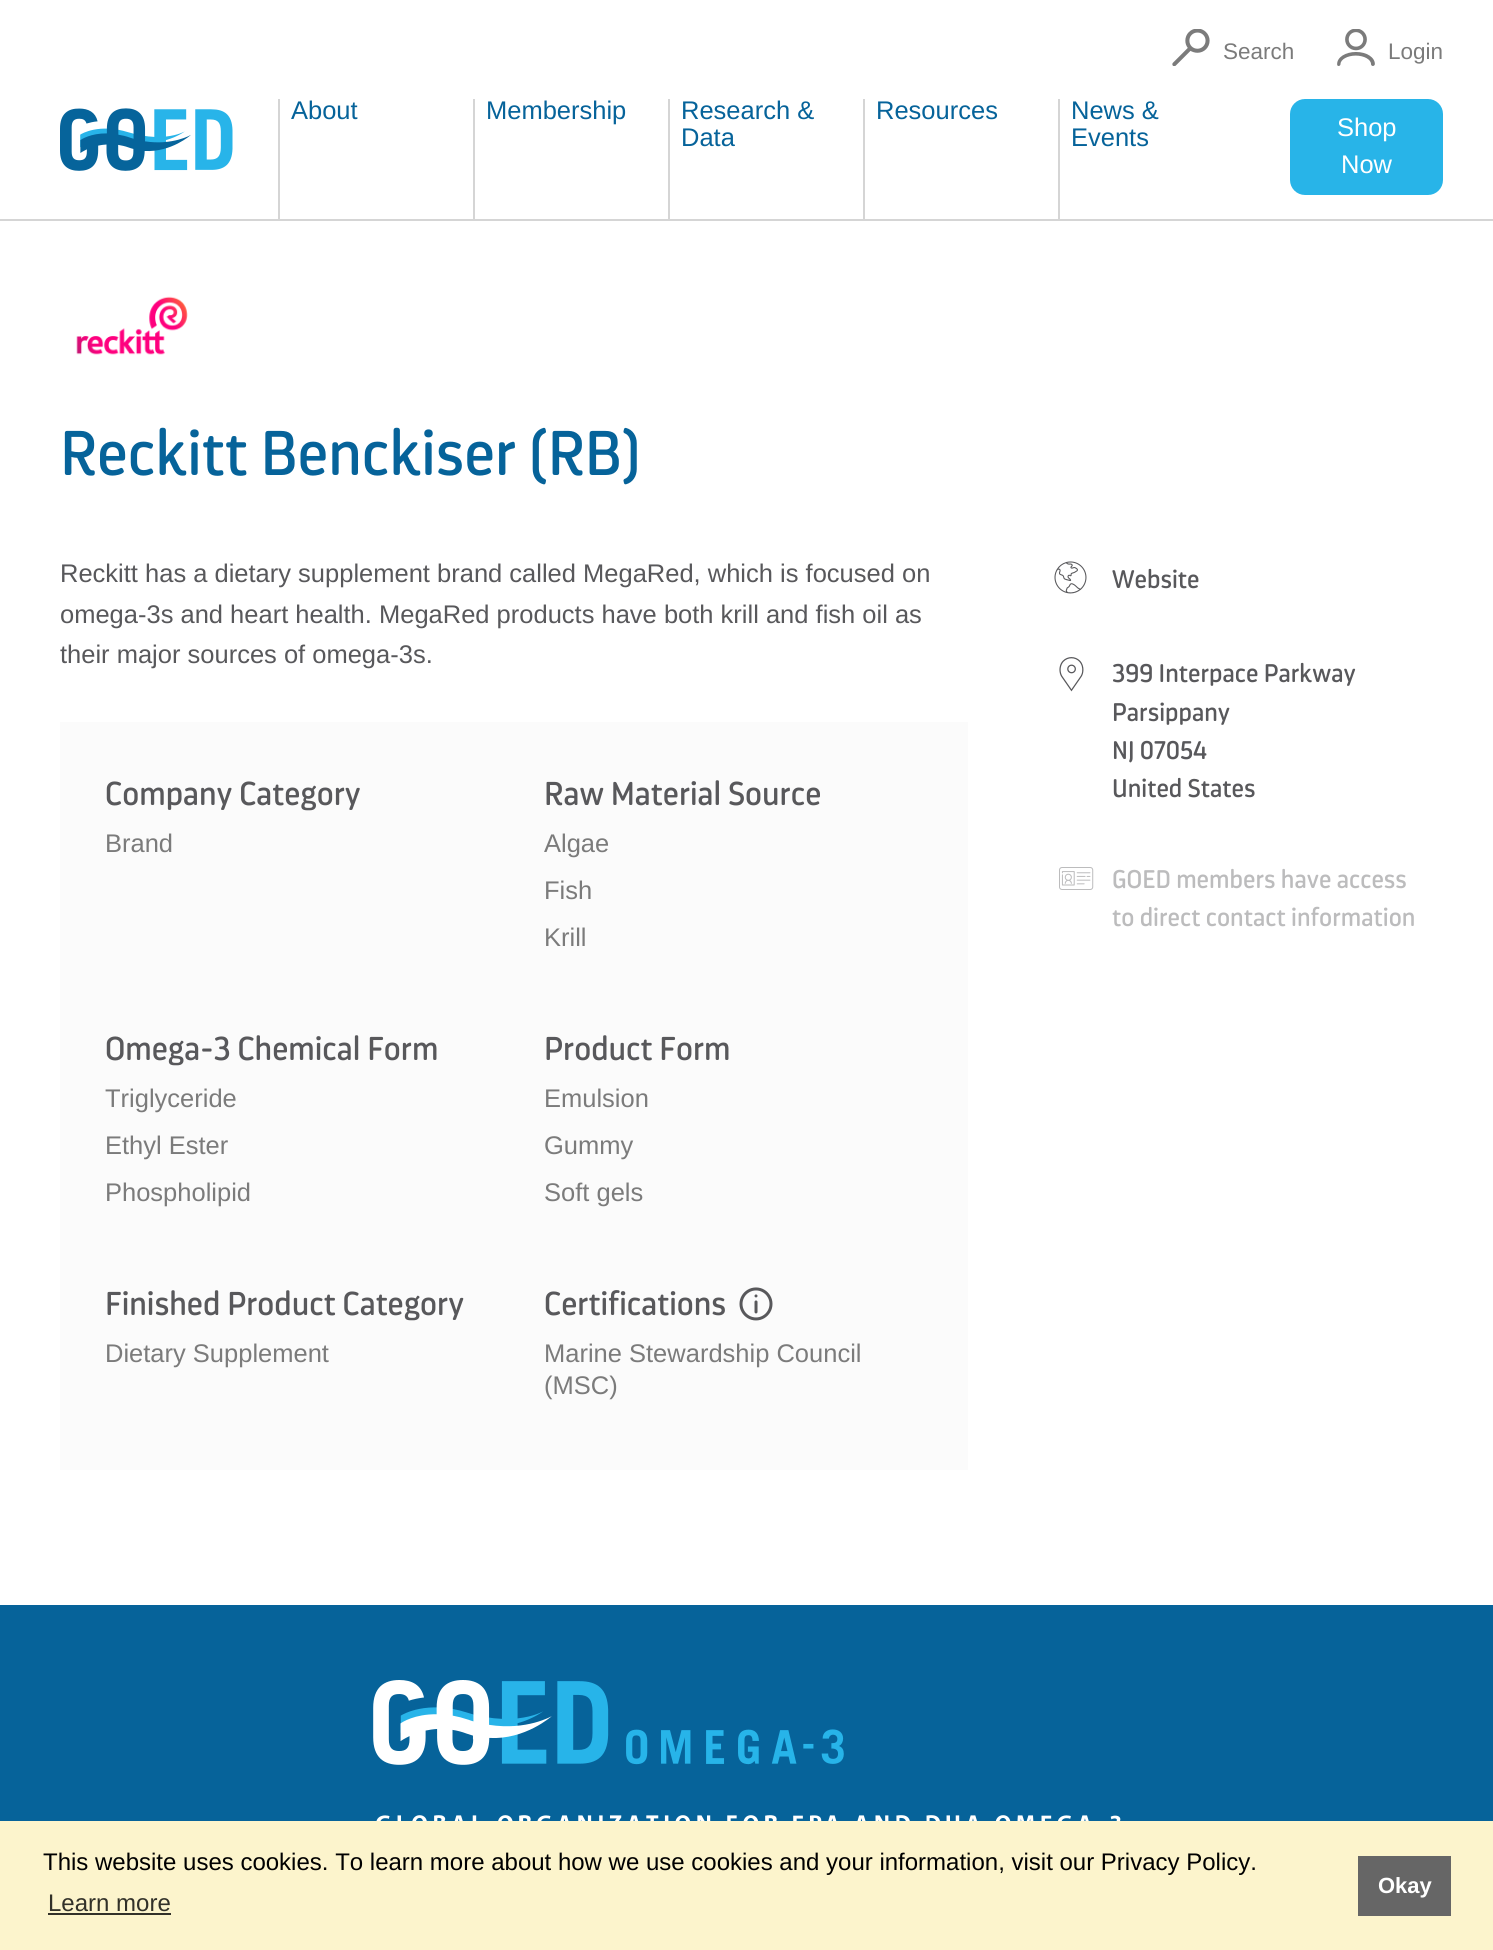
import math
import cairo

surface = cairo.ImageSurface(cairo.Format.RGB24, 1493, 1950)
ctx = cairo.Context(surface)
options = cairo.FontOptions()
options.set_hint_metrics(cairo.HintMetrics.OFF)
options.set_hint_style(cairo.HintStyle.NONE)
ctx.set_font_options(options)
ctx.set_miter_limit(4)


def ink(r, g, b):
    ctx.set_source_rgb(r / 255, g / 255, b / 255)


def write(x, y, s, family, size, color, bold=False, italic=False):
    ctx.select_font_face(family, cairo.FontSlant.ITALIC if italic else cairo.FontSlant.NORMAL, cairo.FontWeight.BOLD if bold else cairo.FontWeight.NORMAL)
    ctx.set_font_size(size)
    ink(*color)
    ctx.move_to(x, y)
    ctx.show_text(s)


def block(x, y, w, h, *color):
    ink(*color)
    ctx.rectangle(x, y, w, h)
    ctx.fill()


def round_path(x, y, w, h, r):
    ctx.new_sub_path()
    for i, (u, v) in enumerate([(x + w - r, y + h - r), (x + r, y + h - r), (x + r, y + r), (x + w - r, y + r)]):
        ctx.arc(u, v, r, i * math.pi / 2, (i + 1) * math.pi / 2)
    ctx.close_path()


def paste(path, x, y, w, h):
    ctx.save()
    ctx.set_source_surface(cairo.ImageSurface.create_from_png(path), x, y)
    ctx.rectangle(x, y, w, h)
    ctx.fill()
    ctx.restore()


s1 = dict(family="Liberation Sans", size=22.5, color=(123, 123, 123))
s2 = dict(family="Liberation Sans", size=25.5, color=(6, 99, 154))
s3 = dict(family="Liberation Sans", size=25.5, color=(255, 255, 255))
s4 = dict(family="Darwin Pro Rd", size=63, color=(6, 99, 154))
s5 = dict(family="Liberation Sans", size=25.5, color=(88, 88, 91))
s6 = dict(family="Darwin Pro Rd", size=33, color=(88, 88, 91))
s7 = dict(family="Liberation Sans", size=25.5, color=(123, 123, 123))
s8 = dict(family="Darwin Pro Rd", size=25.5, color=(88, 88, 91))
s9 = dict(family="Darwin Pro Rd", size=25.5, color=(188, 188, 189))
s10 = dict(family="Liberation Sans", size=24, color=(0, 0, 0))
s11 = dict(family="Liberation Sans", size=24, color=(50, 49, 41))
s12 = dict(family="Liberation Sans", size=22, color=(255, 255, 255), bold=True)

ink(6, 99, 154)
ctx.paint()
block(0, 0, 1493, 219, 255, 255, 255)
block(0, 219, 1493, 2, 213, 213, 213)
paste("pic1.png", 60, 108, 173, 63)
paste("pic2.png", 1172, 29, 38, 37)
write(1223, 59, "Search", **s1)
paste("pic3.png", 1337, 29, 38, 37)
write(1388, 59, "Login", **s1)
block(278, 99, 2, 120, 213, 213, 213)
write(291, 119, "About", **s2)
block(473, 99, 2, 120, 213, 213, 213)
write(486, 119, "Membership", **s2)
block(668, 99, 2, 120, 213, 213, 213)
write(681, 119, "Research &", **s2)
write(681, 146, "Data", **s2)
block(863, 99, 2, 120, 213, 213, 213)
write(876, 119, "Resources", **s2)
block(1058, 99, 2, 120, 213, 213, 213)
write(1071, 119, "News &", **s2)
write(1071, 146, "Events", **s2)
ink(40, 180, 232)
round_path(1291, 100, 151, 94, 14)
ctx.fill_preserve()
ctx.stroke()
write(1337, 136, "Shop", **s3)
write(1341, 173, "Now", **s3)
block(0, 221, 1493, 1384, 255, 255, 255)
paste("pic4.png", 76, 296, 112, 59)
write(60, 475, "Reckitt Benckiser (RB)", **s4)
write(60, 582, "Reckitt has a dietary supplement brand called MegaRed, which is focused on", **s5)
write(60, 623, "omega-3s and heart health. MegaRed products have both krill and fish oil as", **s5)
write(60, 663, "their major sources of omega-3s.", **s5)
block(60, 722, 908, 748, 251, 251, 251)
write(105, 805, "Company Category", **s6)
write(105, 852, "Brand", **s7)
write(544, 805, "Raw Material Source", **s6)
write(544, 852, "Algae", **s7)
write(544, 899, "Fish", **s7)
write(544, 946, "Krill", **s7)
write(105, 1060, "Omega-3 Chemical Form", **s6)
write(105, 1107, "Triglyceride", **s7)
write(105, 1154, "Ethyl Ester", **s7)
write(105, 1201, "Phospholipid", **s7)
write(544, 1060, "Product Form", **s6)
write(544, 1107, "Emulsion", **s7)
write(544, 1154, "Gummy", **s7)
write(544, 1201, "Soft gels", **s7)
write(105, 1315, "Finished Product Category", **s6)
write(105, 1362, "Dietary Supplement", **s7)
write(544, 1315, "Certifications", **s6)
paste("pic5.png", 739, 1287, 34, 34)
write(544, 1362, "Marine Stewardship Council", **s7)
write(544, 1394, "(MSC)", **s7)
paste("pic6.png", 1054, 561, 33, 33)
write(1112, 588, "Website", **s8)
paste("pic7.png", 1059, 657, 25, 35)
write(1112, 682, "399 Interpace Parkway", **s8)
write(1112, 721, "Parsippany", **s8)
write(1112, 759, "NJ 07054", **s8)
write(1112, 797, "United States", **s8)
paste("pic8.png", 1059, 867, 35, 23)
write(1112, 888, "GOED members have access", **s9)
write(1112, 926, "to direct contact information", **s9)
paste("pic9.png", 373, 1680, 748, 141)
block(0, 1821, 1493, 129, 252, 244, 204)
write(43, 1870, "This website uses cookies. To learn more about how we use cookies and your information, visit our Privacy Policy.", **s10)
write(48, 1911, "Learn more", **s11)
block(48, 1913, 123, 2, 50, 49, 41)
block(1358, 1856, 93, 60, 102, 102, 102)
write(1378, 1893, "Okay", **s12)
surface.write_to_png("screenshot.png")
